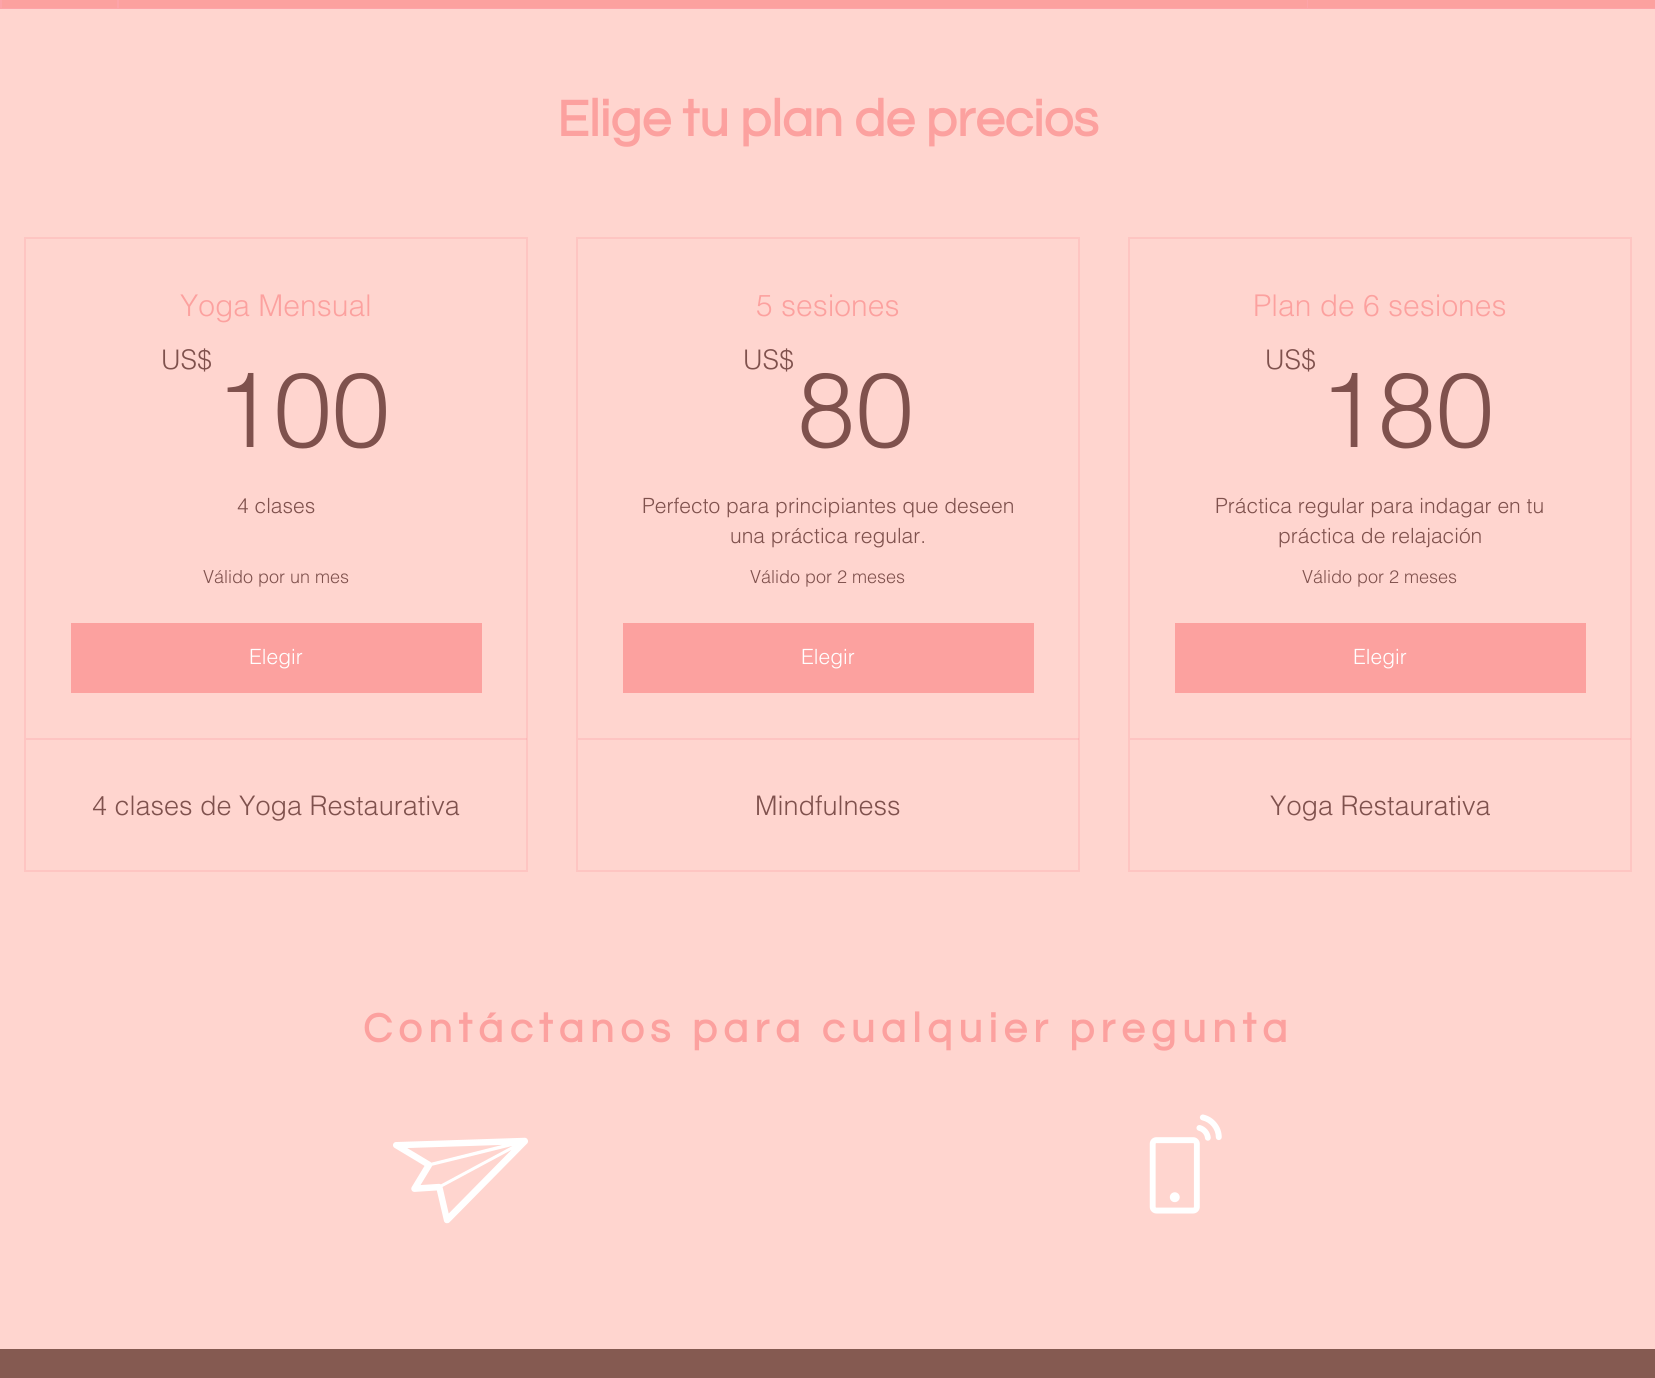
import math
import cairo

surface = cairo.ImageSurface(cairo.Format.RGB24, 1655, 1378)
ctx = cairo.Context(surface)
options = cairo.FontOptions()
options.set_hint_metrics(cairo.HintMetrics.OFF)
options.set_hint_style(cairo.HintStyle.NONE)
ctx.set_font_options(options)
ctx.set_miter_limit(4)


def ink(r, g, b):
    ctx.set_source_rgb(r / 255, g / 255, b / 255)


def write(x, y, s, family, size, color, bold=False, italic=False):
    ctx.select_font_face(family, cairo.FontSlant.ITALIC if italic else cairo.FontSlant.NORMAL, cairo.FontWeight.BOLD if bold else cairo.FontWeight.NORMAL)
    ctx.set_font_size(size)
    ink(*color)
    ctx.move_to(x, y)
    ctx.show_text(s)


def write_spaced(x, y, s, letter, word):
    ctx.move_to(x, y)
    for ch in s:
        ctx.show_text(ch)
        ctx.rel_move_to(letter + word * (ch == ' '), 0)


def block(x, y, w, h, *color):
    ink(*color)
    ctx.rectangle(x, y, w, h)
    ctx.fill()


def paste(path, x, y, w, h):
    ctx.save()
    ctx.set_source_surface(cairo.ImageSurface.create_from_png(path), x, y)
    ctx.rectangle(x, y, w, h)
    ctx.fill()
    ctx.restore()


s1 = dict(family="Questrial", size=52.5, color=(252, 161, 159), bold=True)
s2 = dict(family="helvetica Light", size=30, color=(252, 161, 159))
s3 = dict(family="helvetica Light", size=27, color=(127, 81, 77))
s4 = dict(family="helvetica Light", size=105, color=(127, 81, 77))
s5 = dict(family="helvetica Light", size=21, color=(127, 81, 77))
s6 = dict(family="helvetica Light", size=18, color=(127, 81, 77))
s7 = dict(family="helvetica Light", size=21, color=(255, 255, 255))

ink(255, 213, 207)
ctx.paint()
block(0, 0, 1655, 9, 253, 164, 169)
block(2, 0, 115, 8, 252, 161, 159)
block(119, 0, 1188, 8, 252, 161, 159)
block(1308, 0, 347, 8, 252, 161, 159)
write(557, 136, "Elige tu plan de precios", **s1)
ctx.rectangle(25, 238, 502, 633)
ink(254, 197, 194)
ctx.stroke()
write(180, 316, "Yoga Mensual", **s2)
write(161, 369, "US$", **s3)
write(215, 447, "100", **s4)
write(237, 513, "4 clases", **s5)
write(203, 583, "Válido por un mes", **s6)
block(71, 623, 411, 70, 252, 161, 159)
write(249, 664, "Elegir", **s7)
ctx.set_source_rgba(0.988, 0.522, 0.549, 0.2)
ctx.rectangle(26, 738, 501, 2)
ctx.fill()
write(92, 815, "4 clases de Yoga Restaurativa", **s3)
ctx.rectangle(577, 238, 502, 633)
ink(254, 197, 194)
ctx.stroke()
write(756, 316, "5 sesiones", **s2)
write(743, 369, "US$", **s3)
write(797, 447, "80", **s4)
write(642, 513, "Perfecto para principiantes que deseen", **s5)
write(730, 543, "una práctica regular.", **s5)
write(750, 583, "Válido por 2 meses", **s6)
block(623, 623, 411, 70, 252, 161, 159)
write(801, 664, "Elegir", **s7)
ctx.set_source_rgba(0.988, 0.522, 0.549, 0.2)
ctx.rectangle(578, 738, 501, 2)
ctx.fill()
write(755, 815, "Mindfulness", **s3)
ctx.rectangle(1129, 238, 502, 633)
ink(254, 197, 194)
ctx.stroke()
write(1253, 316, "Plan de 6 sesiones", **s2)
write(1265, 369, "US$", **s3)
write(1319, 447, "180", **s4)
write(1215, 513, "Práctica regular para indagar en tu", **s5)
write(1278, 543, "práctica de relajación", **s5)
write(1302, 583, "Válido por 2 meses", **s6)
block(1175, 623, 411, 70, 252, 161, 159)
write(1353, 664, "Elegir", **s7)
ctx.set_source_rgba(0.988, 0.522, 0.549, 0.2)
ctx.rectangle(1130, 738, 501, 2)
ctx.fill()
write(1270, 815, "Yoga Restaurativa", **s3)
ctx.select_font_face("Questrial", cairo.FontSlant.NORMAL, cairo.FontWeight.BOLD)
ctx.set_font_size(42)
ink(252, 161, 159)
write_spaced(363, 1042, "Contáctanos para cualquier pregunta", 6.3, 0)
paste("pic1.png", 393, 1137, 135, 87)
paste("pic2.png", 1149, 1114, 73, 100)
block(0, 1349, 1655, 29, 133, 90, 81)
surface.write_to_png("screenshot.png")
